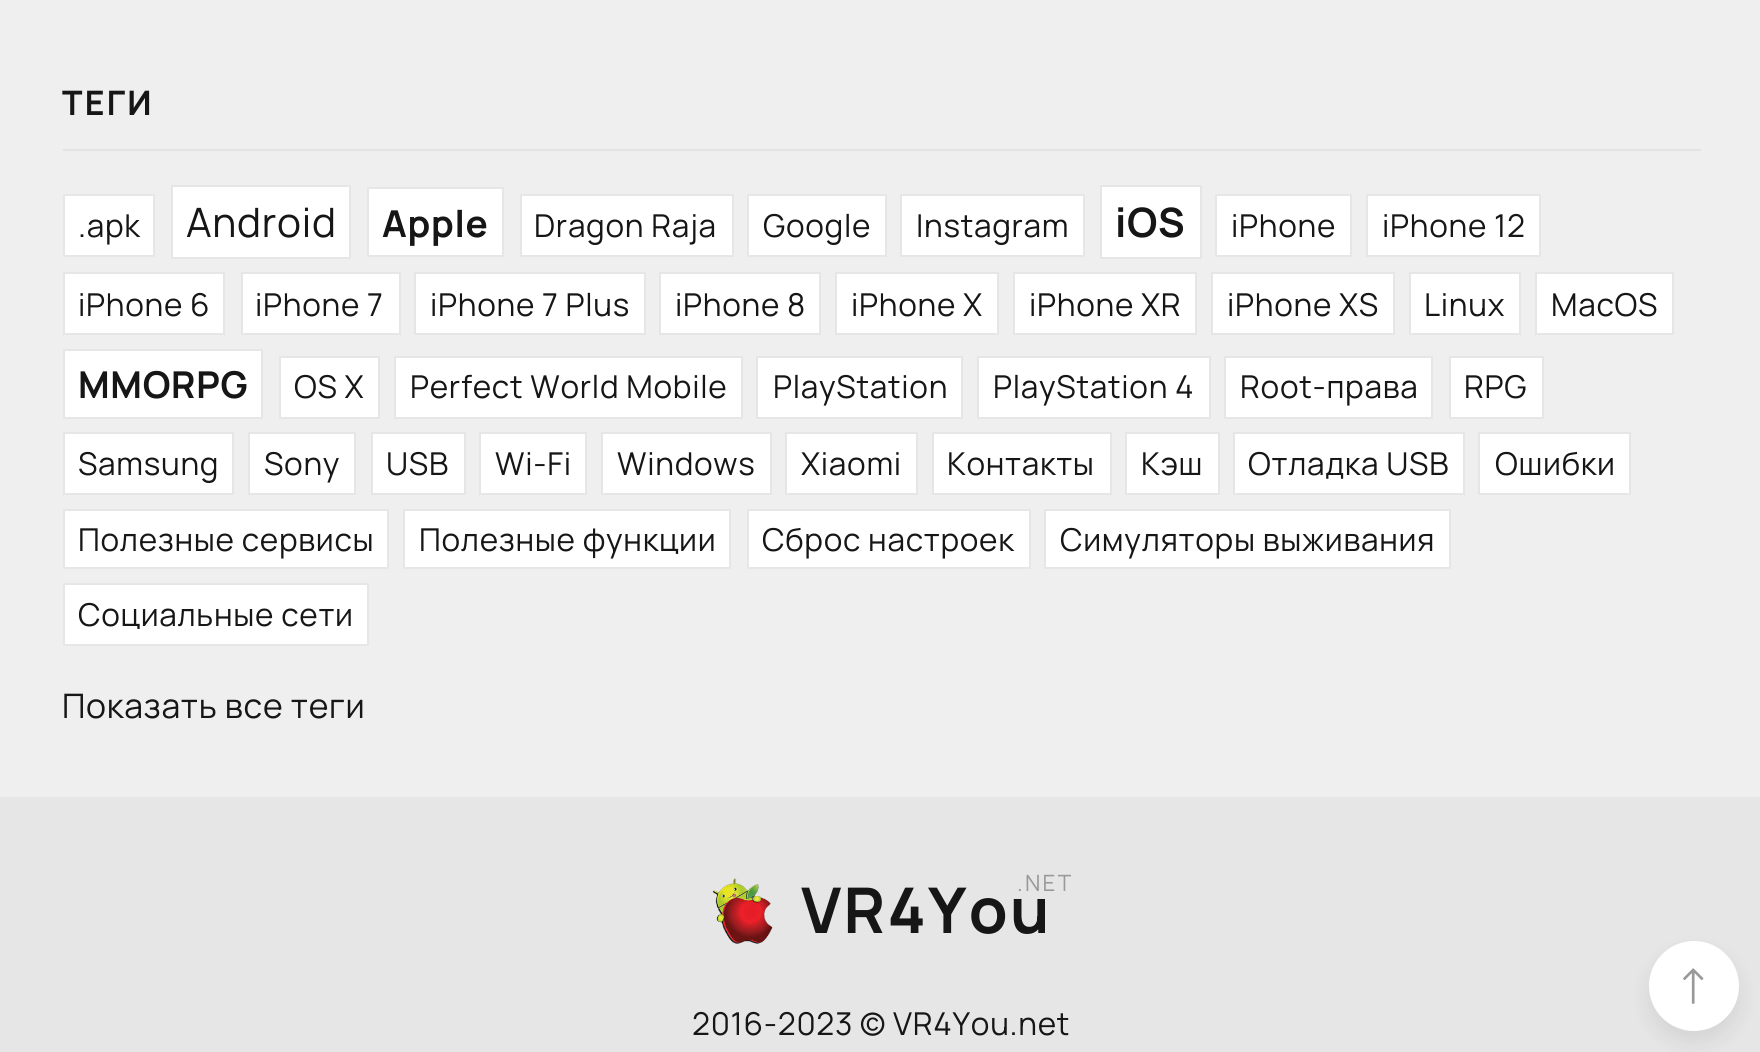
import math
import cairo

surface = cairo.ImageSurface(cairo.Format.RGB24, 1760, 1052)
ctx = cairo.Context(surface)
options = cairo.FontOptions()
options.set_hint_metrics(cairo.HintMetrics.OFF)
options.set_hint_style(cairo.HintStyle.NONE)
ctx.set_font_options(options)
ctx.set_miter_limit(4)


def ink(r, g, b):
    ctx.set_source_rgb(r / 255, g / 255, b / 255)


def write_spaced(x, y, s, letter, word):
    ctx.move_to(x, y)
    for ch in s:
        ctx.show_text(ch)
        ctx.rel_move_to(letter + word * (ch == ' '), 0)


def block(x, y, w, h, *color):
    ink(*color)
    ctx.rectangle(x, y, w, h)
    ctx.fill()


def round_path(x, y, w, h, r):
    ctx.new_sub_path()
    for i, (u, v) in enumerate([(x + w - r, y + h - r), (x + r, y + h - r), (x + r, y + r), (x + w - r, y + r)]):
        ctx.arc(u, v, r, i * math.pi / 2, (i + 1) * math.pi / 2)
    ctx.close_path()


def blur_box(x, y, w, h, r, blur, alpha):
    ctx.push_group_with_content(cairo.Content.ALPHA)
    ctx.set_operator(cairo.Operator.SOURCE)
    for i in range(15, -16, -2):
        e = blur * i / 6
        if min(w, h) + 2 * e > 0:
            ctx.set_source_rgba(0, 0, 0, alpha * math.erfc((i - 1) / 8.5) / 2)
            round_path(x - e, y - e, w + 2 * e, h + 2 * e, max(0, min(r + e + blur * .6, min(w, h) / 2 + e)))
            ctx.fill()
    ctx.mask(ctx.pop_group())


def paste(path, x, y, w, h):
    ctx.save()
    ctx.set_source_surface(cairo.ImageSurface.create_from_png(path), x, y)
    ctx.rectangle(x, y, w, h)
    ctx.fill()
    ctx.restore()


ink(239, 239, 239)
ctx.paint()
block(63, 149, 1638, 2, 227, 227, 227)
ctx.select_font_face("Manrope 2 ExtraLight")
ctx.set_font_size(33.75)
ink(22, 22, 22)
write_spaced(62, 115, "ТЕГИ", 2.25, 0)
ink(255, 255, 255)
ctx.rectangle(64, 195, 90, 61)
ctx.fill_preserve()
ink(230, 230, 230)
ctx.stroke()
ctx.select_font_face("Manrope ExtraLight")
ctx.set_font_size(31.5)
ink(22, 22, 22)
write_spaced(78, 237, ".apk", 0.7, 0)
ink(255, 255, 255)
ctx.rectangle(172, 186, 178, 72)
ctx.fill_preserve()
ink(230, 230, 230)
ctx.stroke()
ctx.set_font_size(40.5)
ink(22, 22, 22)
write_spaced(186, 237, "Android", 0.7, 0)
ink(255, 255, 255)
ctx.rectangle(368, 188, 135, 68)
ctx.fill_preserve()
ink(230, 230, 230)
ctx.stroke()
ctx.select_font_face("Manrope 2 ExtraLight")
ctx.set_font_size(37)
ink(22, 22, 22)
write_spaced(382, 237, "Apple", 0.7, 0)
ink(255, 255, 255)
ctx.rectangle(521, 195, 212, 61)
ctx.fill_preserve()
ink(230, 230, 230)
ctx.stroke()
ctx.select_font_face("Manrope ExtraLight")
ctx.set_font_size(31.5)
ink(22, 22, 22)
write_spaced(534, 237, "Dragon Raja", 0.7, 0)
ink(255, 255, 255)
ctx.rectangle(748, 195, 138, 61)
ctx.fill_preserve()
ink(230, 230, 230)
ctx.stroke()
ink(22, 22, 22)
write_spaced(763, 237, "Google", 0.7, 0)
ink(255, 255, 255)
ctx.rectangle(901, 195, 183, 61)
ctx.fill_preserve()
ink(230, 230, 230)
ctx.stroke()
ink(22, 22, 22)
write_spaced(916, 237, "Instagram", 0.7, 0)
ink(255, 255, 255)
ctx.rectangle(1101, 186, 100, 72)
ctx.fill_preserve()
ink(230, 230, 230)
ctx.stroke()
ctx.select_font_face("Manrope 2 ExtraLight")
ctx.set_font_size(40.5)
ink(22, 22, 22)
write_spaced(1115, 237, "iOS", 0.7, 0)
ink(255, 255, 255)
ctx.rectangle(1216, 195, 135, 61)
ctx.fill_preserve()
ink(230, 230, 230)
ctx.stroke()
ctx.select_font_face("Manrope ExtraLight")
ctx.set_font_size(31.5)
ink(22, 22, 22)
write_spaced(1231, 237, "iPhone", 0.7, 0)
ink(255, 255, 255)
ctx.rectangle(1367, 195, 173, 61)
ctx.fill_preserve()
ink(230, 230, 230)
ctx.stroke()
ink(22, 22, 22)
write_spaced(1382, 237, "iPhone 12", 0.7, 0)
ink(255, 255, 255)
ctx.rectangle(64, 273, 160, 61)
ctx.fill_preserve()
ink(230, 230, 230)
ctx.stroke()
ink(22, 22, 22)
write_spaced(78, 316, "iPhone 6", 0.7, 0)
ink(255, 255, 255)
ctx.rectangle(242, 273, 158, 61)
ctx.fill_preserve()
ink(230, 230, 230)
ctx.stroke()
ink(22, 22, 22)
write_spaced(255, 316, "iPhone 7", 0.7, 0)
ink(255, 255, 255)
ctx.rectangle(415, 273, 230, 61)
ctx.fill_preserve()
ink(230, 230, 230)
ctx.stroke()
ink(22, 22, 22)
write_spaced(430, 316, "iPhone 7 Plus", 0.7, 0)
ink(255, 255, 255)
ctx.rectangle(660, 273, 160, 61)
ctx.fill_preserve()
ink(230, 230, 230)
ctx.stroke()
ink(22, 22, 22)
write_spaced(675, 316, "iPhone 8", 0.7, 0)
ink(255, 255, 255)
ctx.rectangle(836, 273, 162, 61)
ctx.fill_preserve()
ink(230, 230, 230)
ctx.stroke()
ink(22, 22, 22)
write_spaced(851, 316, "iPhone X", 0.7, 0)
ink(255, 255, 255)
ctx.rectangle(1014, 273, 182, 61)
ctx.fill_preserve()
ink(230, 230, 230)
ctx.stroke()
ink(22, 22, 22)
write_spaced(1029, 316, "iPhone XR", 0.7, 0)
ink(255, 255, 255)
ctx.rectangle(1212, 273, 182, 61)
ctx.fill_preserve()
ink(230, 230, 230)
ctx.stroke()
ink(22, 22, 22)
write_spaced(1227, 316, "iPhone XS", 0.7, 0)
ink(255, 255, 255)
ctx.rectangle(1410, 273, 110, 61)
ctx.fill_preserve()
ink(230, 230, 230)
ctx.stroke()
ink(22, 22, 22)
write_spaced(1424, 316, "Linux", 0.7, 0)
ink(255, 255, 255)
ctx.rectangle(1536, 273, 137, 61)
ctx.fill_preserve()
ink(230, 230, 230)
ctx.stroke()
ink(22, 22, 22)
write_spaced(1551, 316, "MacOS", 0.7, 0)
ink(255, 255, 255)
ctx.rectangle(64, 350, 198, 68)
ctx.fill_preserve()
ink(230, 230, 230)
ctx.stroke()
ctx.select_font_face("Manrope 2 ExtraLight")
ctx.set_font_size(37)
ink(22, 22, 22)
write_spaced(78, 398, "MMORPG", 0.7, 0)
ink(255, 255, 255)
ctx.rectangle(280, 357, 99, 61)
ctx.fill_preserve()
ink(230, 230, 230)
ctx.stroke()
ctx.select_font_face("Manrope ExtraLight")
ctx.set_font_size(31.5)
ink(22, 22, 22)
write_spaced(294, 398, "OS X", 0.7, 0)
ink(255, 255, 255)
ctx.rectangle(395, 357, 347, 61)
ctx.fill_preserve()
ink(230, 230, 230)
ctx.stroke()
ink(22, 22, 22)
write_spaced(410, 398, "Perfect World Mobile", 0.7, 0)
ink(255, 255, 255)
ctx.rectangle(757, 357, 205, 61)
ctx.fill_preserve()
ink(230, 230, 230)
ctx.stroke()
ink(22, 22, 22)
write_spaced(773, 398, "PlayStation", 0.7, 0)
ink(255, 255, 255)
ctx.rectangle(978, 357, 232, 61)
ctx.fill_preserve()
ink(230, 230, 230)
ctx.stroke()
ink(22, 22, 22)
write_spaced(993, 398, "PlayStation 4", 0.7, 0)
ink(255, 255, 255)
ctx.rectangle(1225, 357, 207, 61)
ctx.fill_preserve()
ink(230, 230, 230)
ctx.stroke()
ink(22, 22, 22)
write_spaced(1240, 398, "Root-права", 0.7, 0)
ink(255, 255, 255)
ctx.rectangle(1450, 357, 93, 61)
ctx.fill_preserve()
ink(230, 230, 230)
ctx.stroke()
ink(22, 22, 22)
write_spaced(1464, 398, "RPG", 0.7, 0)
ink(255, 255, 255)
ctx.rectangle(64, 433, 169, 61)
ctx.fill_preserve()
ink(230, 230, 230)
ctx.stroke()
ink(22, 22, 22)
write_spaced(78, 475, "Samsung", 0.7, 0)
ink(255, 255, 255)
ctx.rectangle(249, 433, 106, 61)
ctx.fill_preserve()
ink(230, 230, 230)
ctx.stroke()
ink(22, 22, 22)
write_spaced(264, 475, "Sony", 0.7, 0)
ink(255, 255, 255)
ctx.rectangle(372, 433, 93, 61)
ctx.fill_preserve()
ink(230, 230, 230)
ctx.stroke()
ink(22, 22, 22)
write_spaced(386, 475, "USB", 0.7, 0)
ink(255, 255, 255)
ctx.rectangle(480, 433, 106, 61)
ctx.fill_preserve()
ink(230, 230, 230)
ctx.stroke()
ink(22, 22, 22)
write_spaced(495, 475, "Wi-Fi", 0.7, 0)
ink(255, 255, 255)
ctx.rectangle(602, 433, 169, 61)
ctx.fill_preserve()
ink(230, 230, 230)
ctx.stroke()
ink(22, 22, 22)
write_spaced(617, 475, "Windows", 0.7, 0)
ink(255, 255, 255)
ctx.rectangle(786, 433, 131, 61)
ctx.fill_preserve()
ink(230, 230, 230)
ctx.stroke()
ink(22, 22, 22)
write_spaced(801, 475, "Xiaomi", 0.7, 0)
ink(255, 255, 255)
ctx.rectangle(933, 433, 178, 61)
ctx.fill_preserve()
ink(230, 230, 230)
ctx.stroke()
ink(22, 22, 22)
write_spaced(947, 475, "Контакты", 0.7, 0)
ink(255, 255, 255)
ctx.rectangle(1126, 433, 93, 61)
ctx.fill_preserve()
ink(230, 230, 230)
ctx.stroke()
ink(22, 22, 22)
write_spaced(1141, 475, "Кэш", 0.7, 0)
ink(255, 255, 255)
ctx.rectangle(1234, 433, 230, 61)
ctx.fill_preserve()
ink(230, 230, 230)
ctx.stroke()
ink(22, 22, 22)
write_spaced(1248, 475, "Отладка USB", 0.7, 0)
ink(255, 255, 255)
ctx.rectangle(1479, 433, 151, 61)
ctx.fill_preserve()
ink(230, 230, 230)
ctx.stroke()
ink(22, 22, 22)
write_spaced(1495, 475, "Ошибки", 0.7, 0)
ink(255, 255, 255)
ctx.rectangle(64, 510, 324, 58)
ctx.fill_preserve()
ink(230, 230, 230)
ctx.stroke()
ink(22, 22, 22)
write_spaced(78, 551, "Полезные сервисы", 0.7, 0)
ink(255, 255, 255)
ctx.rectangle(404, 510, 326, 58)
ctx.fill_preserve()
ink(230, 230, 230)
ctx.stroke()
ink(22, 22, 22)
write_spaced(419, 551, "Полезные функции", 0.7, 0)
ink(255, 255, 255)
ctx.rectangle(748, 510, 282, 58)
ctx.fill_preserve()
ink(230, 230, 230)
ctx.stroke()
ink(22, 22, 22)
write_spaced(762, 551, "Сброс настроек", 0.7, 0)
ink(255, 255, 255)
ctx.rectangle(1045, 510, 405, 58)
ctx.fill_preserve()
ink(230, 230, 230)
ctx.stroke()
ink(22, 22, 22)
write_spaced(1060, 551, "Симуляторы выживания", 0.7, 0)
ink(255, 255, 255)
ctx.rectangle(64, 584, 304, 61)
ctx.fill_preserve()
ink(230, 230, 230)
ctx.stroke()
ink(22, 22, 22)
write_spaced(78, 626, "Социальные сети", 0.7, 0)
ctx.set_font_size(33.75)
write_spaced(62, 718, "Показать все теги", 0.7, 0)
block(0, 797, 1760, 255, 230, 230, 230)
paste("pic1.png", 712, 878, 61, 66)
ctx.set_font_size(22.5)
ink(153, 153, 153)
write_spaced(1017, 891, ".NET", 2.25, 0)
ctx.select_font_face("Manrope 2 ExtraLight")
ctx.set_font_size(63)
ink(22, 22, 22)
write_spaced(801, 933, "VR4You", 2.25, 0)
ctx.select_font_face("Manrope ExtraLight")
ctx.set_font_size(31.5)
write_spaced(692, 1035, "2016-2023 © VR4You.net", 0.7, 0)
ink(0, 0, 0)
blur_box(1649, 952, 90, 90, 45, 11, 0.08)
ink(255, 255, 255)
ctx.arc(1694, 986, 45, 0, 2 * math.pi)
ctx.fill()
paste("pic2.png", 1683, 968, 21, 36)
surface.write_to_png("screenshot.png")
